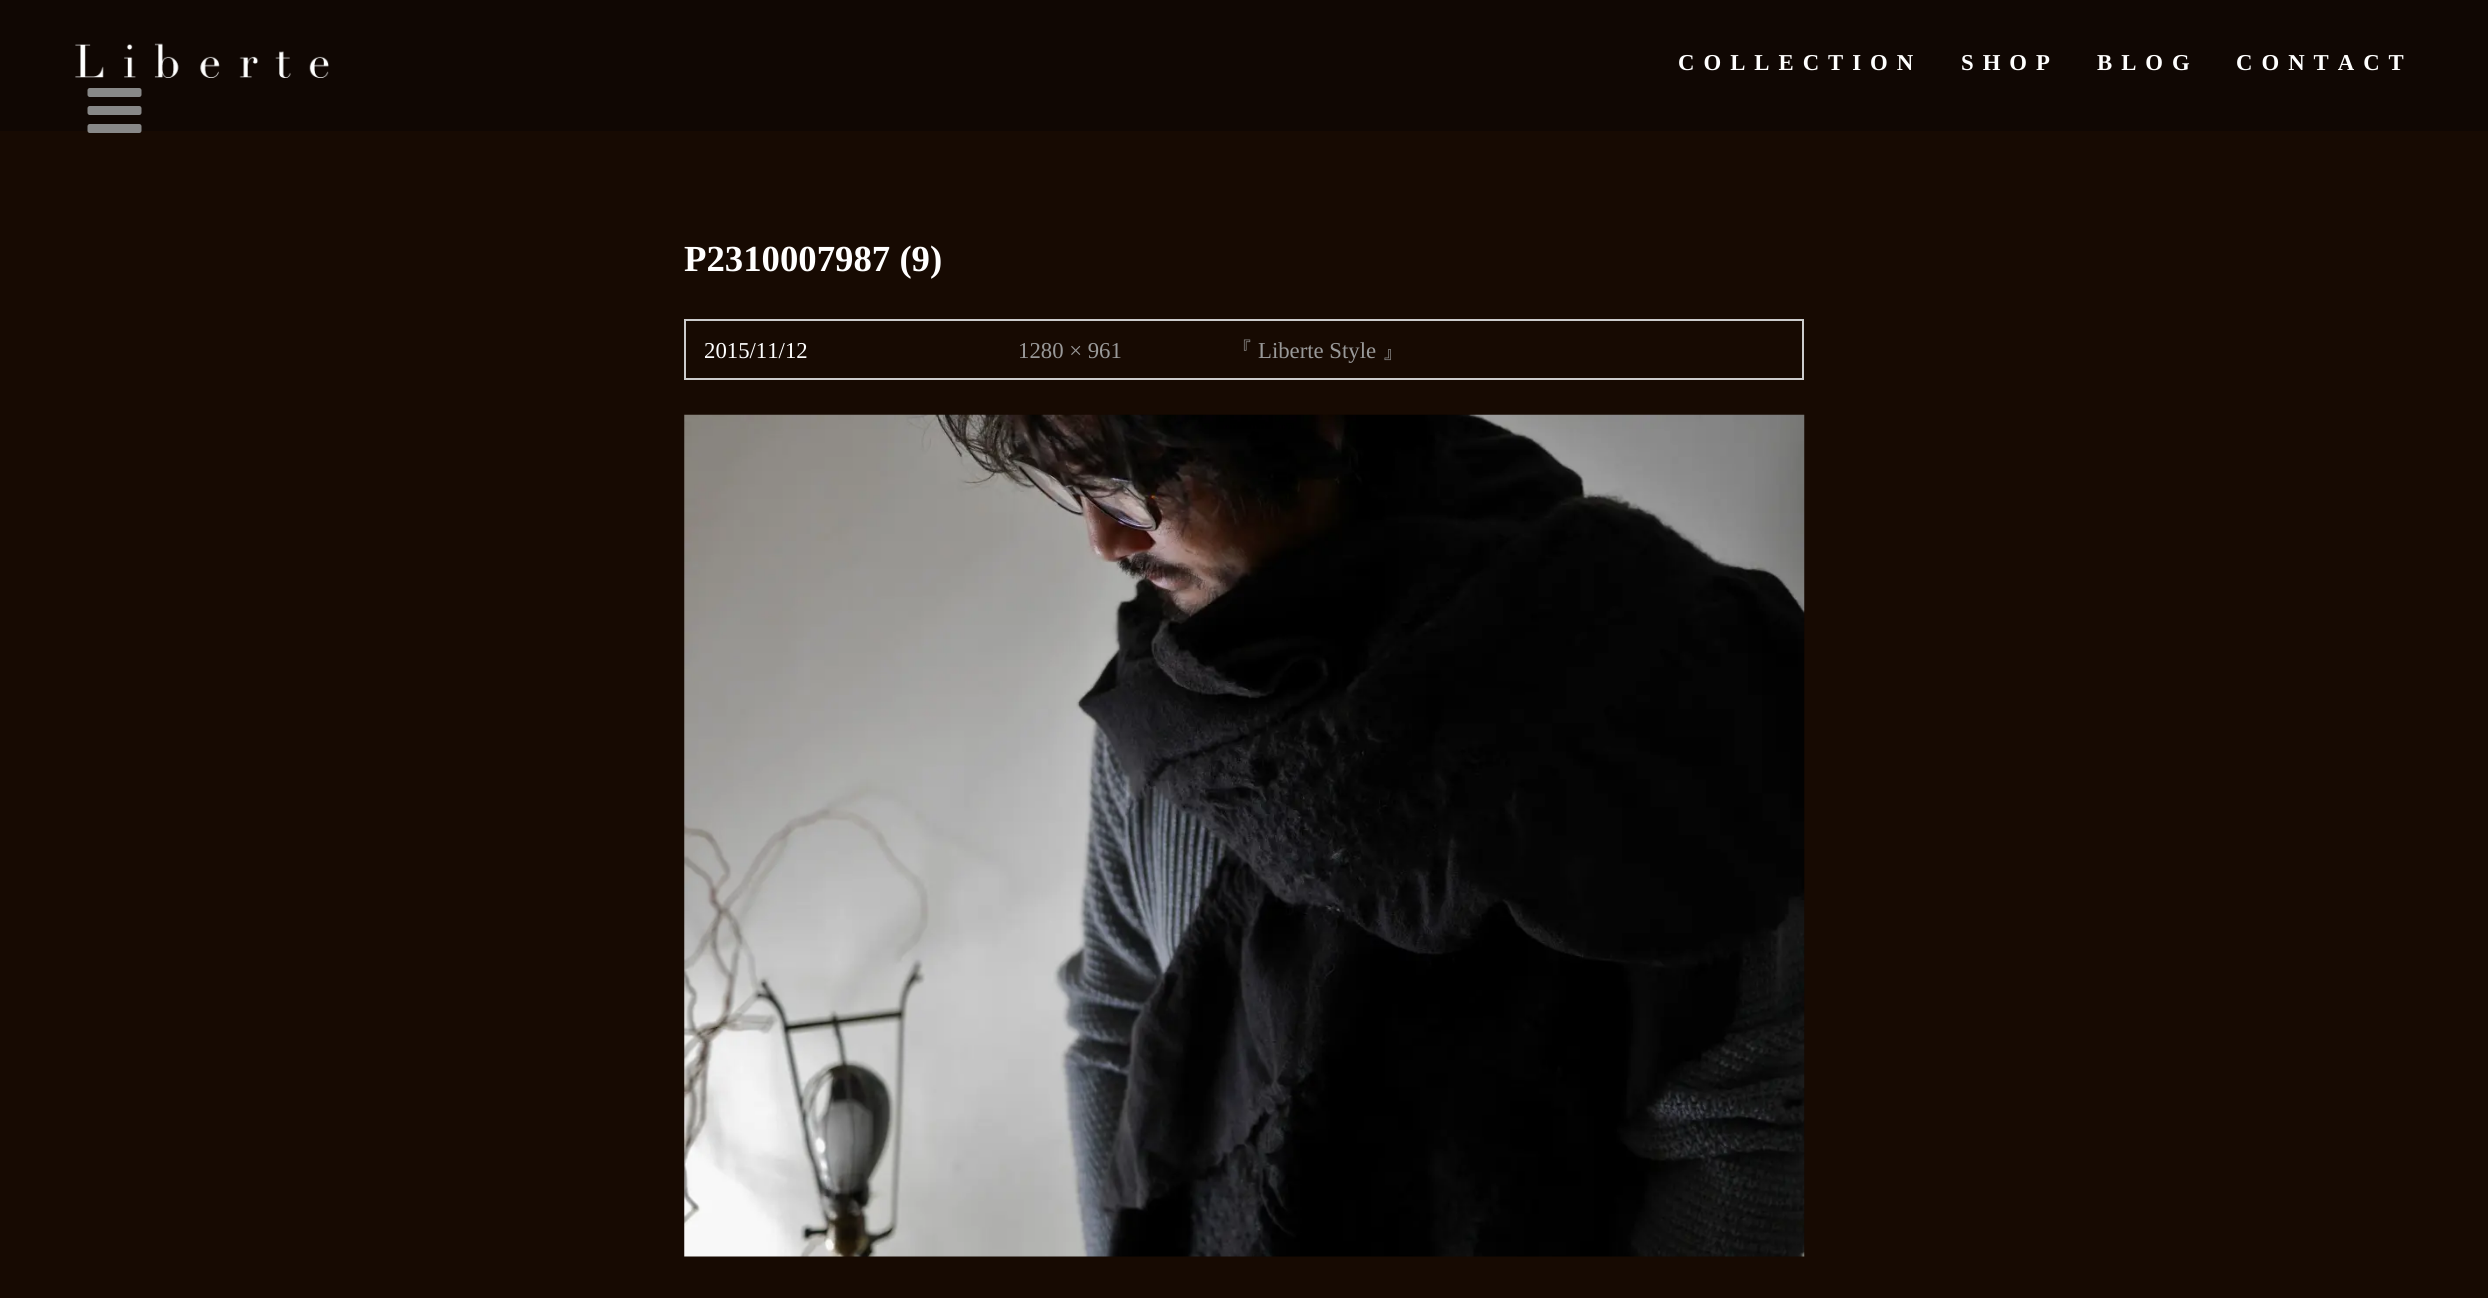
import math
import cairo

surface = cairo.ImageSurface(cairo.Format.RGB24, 2488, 1298)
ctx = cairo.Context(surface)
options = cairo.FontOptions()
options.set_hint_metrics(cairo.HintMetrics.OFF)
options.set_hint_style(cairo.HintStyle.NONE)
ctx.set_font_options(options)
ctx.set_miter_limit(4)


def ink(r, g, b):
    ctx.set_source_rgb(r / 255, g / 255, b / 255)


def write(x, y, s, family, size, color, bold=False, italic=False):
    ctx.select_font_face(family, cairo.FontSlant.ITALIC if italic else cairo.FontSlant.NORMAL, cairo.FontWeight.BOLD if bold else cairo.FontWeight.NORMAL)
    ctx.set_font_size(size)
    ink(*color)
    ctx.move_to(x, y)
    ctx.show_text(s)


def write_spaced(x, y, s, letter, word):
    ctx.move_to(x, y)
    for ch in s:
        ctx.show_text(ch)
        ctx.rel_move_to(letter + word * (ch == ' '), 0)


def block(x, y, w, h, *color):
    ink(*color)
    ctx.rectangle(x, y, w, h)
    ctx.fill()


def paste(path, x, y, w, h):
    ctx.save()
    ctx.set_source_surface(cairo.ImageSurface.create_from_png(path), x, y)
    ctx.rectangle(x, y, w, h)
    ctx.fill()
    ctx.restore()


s1 = dict(family="Liberation Serif", size=36.75, color=(255, 255, 255), bold=True)
s2 = dict(family="Liberation Serif", size=22.75, color=(255, 255, 255))
s3 = dict(family="Liberation Serif", size=22.75, color=(153, 153, 153))
s4 = dict(family="WenQuanYi Zen Hei Medium", size=22.75, color=(153, 153, 153))

ink(23, 10, 2)
ctx.paint()
block(0, 0, 2488, 131, 16, 7, 3)
paste("pic1.png", 75, 43, 254, 35)
ctx.select_font_face("Liberation Serif", cairo.FontSlant.NORMAL, cairo.FontWeight.BOLD)
ctx.set_font_size(22.75)
ink(255, 255, 255)
write_spaced(1678, 70, "COLLECTION", 9, 0)
write_spaced(1961, 70, "SHOP", 9, 0)
write_spaced(2097, 70, "BLOG", 9, 0)
write_spaced(2236, 70, "CONTACT", 9, 0)
paste("pic2.png", 87, 88, 55, 45)
write(684, 271, "P2310007987 (9)", **s1)
ctx.rectangle(685, 320, 1118, 59)
ink(204, 204, 204)
ctx.stroke()
write(704, 358, "2015/11/12", **s2)
write(1018, 358, "1280 × 961", **s3)
write(1230, 358, "『", **s4)
write(1258, 358, "Liberte Style", **s3)
write(1382, 358, "』", **s4)
paste("pic3.png", 684, 414, 1121, 843)
surface.write_to_png("screenshot.png")
